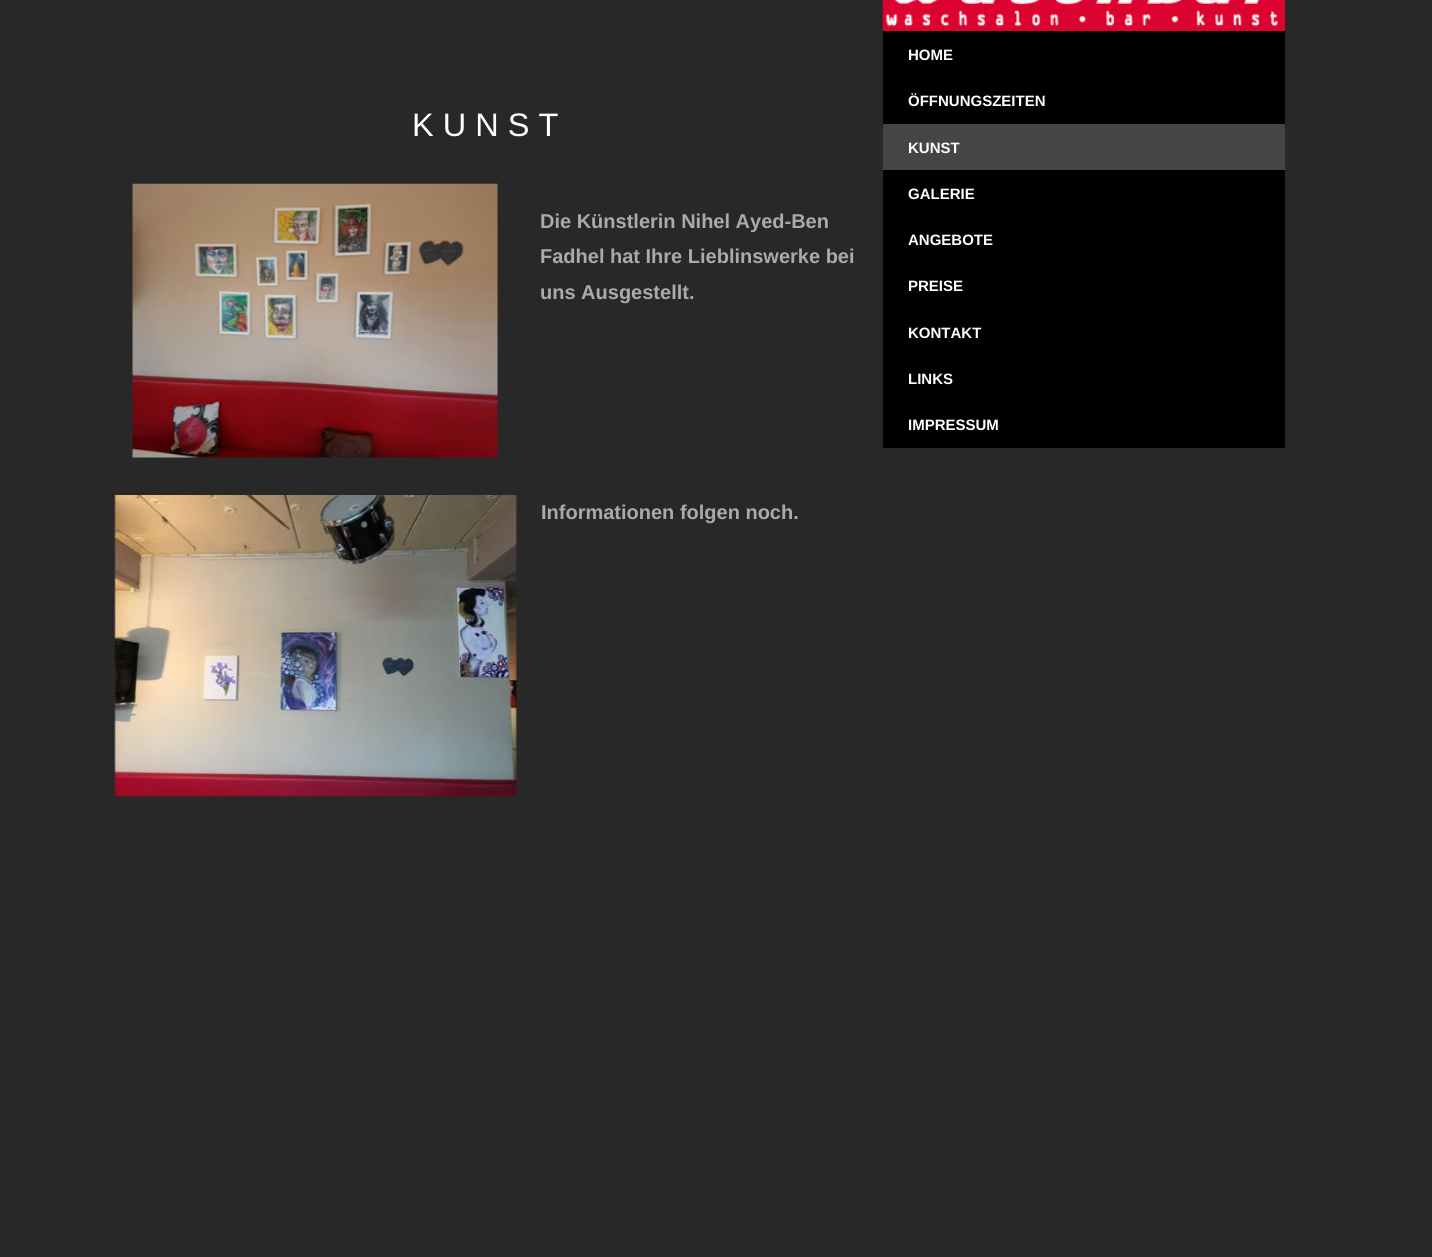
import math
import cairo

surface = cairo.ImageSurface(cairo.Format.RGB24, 1432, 1257)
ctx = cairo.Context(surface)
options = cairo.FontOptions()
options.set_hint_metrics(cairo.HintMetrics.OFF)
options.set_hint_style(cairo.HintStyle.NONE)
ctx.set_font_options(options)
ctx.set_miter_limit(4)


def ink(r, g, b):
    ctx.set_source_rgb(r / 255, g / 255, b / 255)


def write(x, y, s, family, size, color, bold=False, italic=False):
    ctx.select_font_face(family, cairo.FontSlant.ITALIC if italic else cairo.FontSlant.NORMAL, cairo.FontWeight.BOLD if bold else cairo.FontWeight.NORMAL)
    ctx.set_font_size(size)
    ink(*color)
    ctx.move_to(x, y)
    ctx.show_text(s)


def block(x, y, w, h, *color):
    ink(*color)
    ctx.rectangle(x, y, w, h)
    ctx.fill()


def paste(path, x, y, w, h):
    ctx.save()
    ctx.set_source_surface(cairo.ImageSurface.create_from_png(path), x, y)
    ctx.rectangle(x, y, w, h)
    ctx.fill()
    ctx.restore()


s1 = dict(family="Liberation Sans", size=32.5, color=(255, 255, 255))
s2 = dict(family="Liberation Sans", size=20, color=(170, 170, 170), bold=True)
s3 = dict(family="Liberation Sans", size=15, color=(255, 255, 255), bold=True)

ink(40, 40, 40)
ctx.paint()
write(412, 136, "K U N S T", **s1)
paste("pic1.png", 132, 183, 366, 275)
write(540, 228, "Die Künstlerin Nihel Ayed-Ben", **s2)
write(540, 263, "Fadhel hat Ihre Lieblinswerke bei", **s2)
write(540, 299, "uns Ausgestellt.", **s2)
paste("pic2.png", 114, 495, 403, 302)
write(541, 519, "Informationen folgen noch.", **s2)
paste("pic3.png", 882, 0, 403, 31)
block(883, 31, 402, 93, 0, 0, 0)
write(908, 60, "HOME", **s3)
write(908, 106, "ÖFFNUNGSZEITEN", **s3)
block(883, 124, 402, 46, 69, 69, 69)
write(908, 153, "KUNST", **s3)
block(883, 170, 402, 278, 0, 0, 0)
write(908, 199, "GALERIE", **s3)
write(908, 245, "ANGEBOTE", **s3)
write(908, 291, "PREISE", **s3)
write(908, 338, "KONTAKT", **s3)
write(908, 384, "LINKS", **s3)
write(908, 430, "IMPRESSUM", **s3)
surface.write_to_png("screenshot.png")
